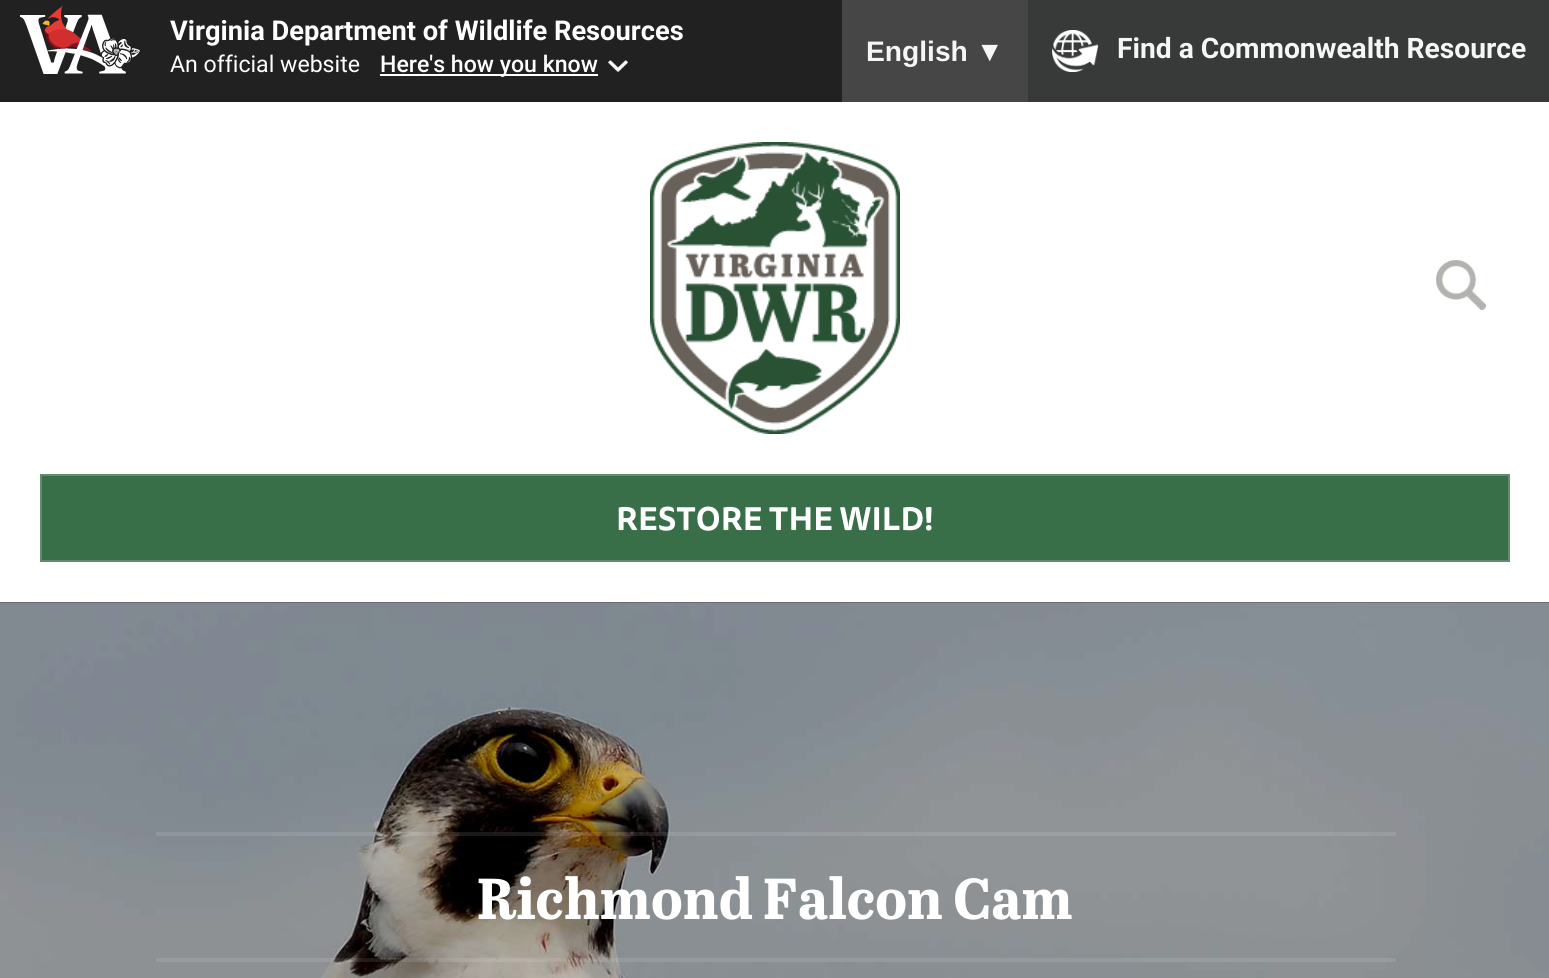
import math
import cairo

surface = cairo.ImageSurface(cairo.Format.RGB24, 1549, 978)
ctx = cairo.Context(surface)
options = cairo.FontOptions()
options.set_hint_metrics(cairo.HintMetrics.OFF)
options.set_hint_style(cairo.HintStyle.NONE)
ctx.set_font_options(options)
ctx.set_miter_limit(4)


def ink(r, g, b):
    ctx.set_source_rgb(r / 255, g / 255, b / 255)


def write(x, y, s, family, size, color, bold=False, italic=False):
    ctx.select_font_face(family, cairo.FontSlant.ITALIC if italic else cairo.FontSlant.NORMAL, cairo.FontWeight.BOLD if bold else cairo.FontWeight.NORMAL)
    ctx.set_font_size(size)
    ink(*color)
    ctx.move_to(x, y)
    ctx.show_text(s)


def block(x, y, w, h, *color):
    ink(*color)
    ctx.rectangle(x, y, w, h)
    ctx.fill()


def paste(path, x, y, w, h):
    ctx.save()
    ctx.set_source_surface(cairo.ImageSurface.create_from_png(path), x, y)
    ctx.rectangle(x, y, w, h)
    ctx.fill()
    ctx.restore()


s1 = dict(family="Roboto", size=27.25, color=(255, 255, 255), bold=True)
s2 = dict(family="Roboto", size=23.1, color=(255, 255, 255))
s3 = dict(family="Roboto Medium", size=23.1, color=(255, 255, 255))
s4 = dict(family="Liberation Sans", size=28.2, color=(246, 246, 246), bold=True)
s5 = dict(family="Roboto", size=28.2, color=(246, 246, 246), bold=True)
s6 = dict(family="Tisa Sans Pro", size=32, color=(255, 255, 255), bold=True)
s7 = dict(family="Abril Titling", size=57.6, color=(255, 255, 255), bold=True)

ink(255, 255, 255)
ctx.paint()
block(0, 0, 842, 102, 33, 33, 33)
paste("pic1.png", 20, 6, 120, 68)
write(170, 40, "Virginia Department of Wildlife Resources", **s1)
write(170, 72, "An official website", **s2)
block(380, 74, 218, 2, 255, 255, 255)
write(380, 72, "Here's how you know", **s3)
paste("pic2.png", 608, 60, 20, 12)
block(842, 0, 186, 102, 70, 70, 70)
write(866, 61, "English ▼", **s4)
block(1028, 0, 521, 102, 56, 57, 57)
paste("pic3.png", 1052, 30, 46, 42)
write(1117, 58, "Find a Commonwealth Resource", **s5)
paste("pic4.png", 650, 142, 250, 292)
paste("pic5.png", 1436, 260, 50, 50)
ink(57, 111, 72)
ctx.rectangle(41, 475, 1468, 86)
ctx.fill_preserve()
ink(97, 140, 109)
ctx.stroke()
write(616, 530, "RESTORE THE WILD!", **s6)
ink(106, 97, 87)
ctx.new_path()
ctx.move_to(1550, 602)
ctx.line_to(0, 602)
ctx.line_to(0, 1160)
ctx.line_to(775, 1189)
ctx.line_to(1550, 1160)
ctx.close_path()
ctx.fill()
paste("pic6.png", 0, 602, 1549, 376)
ctx.set_source_rgba(0, 0, 0, 0.2)
ctx.new_path()
ctx.move_to(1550, 602)
ctx.line_to(0, 602)
ctx.line_to(0, 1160)
ctx.line_to(775, 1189)
ctx.line_to(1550, 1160)
ctx.close_path()
ctx.fill()
ctx.set_source_rgba(1, 1, 1, 0.1)
ctx.rectangle(156, 832, 1240, 4)
ctx.fill()
write(477, 919, "Richmond Falcon Cam", **s7)
ctx.set_source_rgba(1, 1, 1, 0.1)
ctx.rectangle(156, 958, 1240, 4)
ctx.fill()
surface.write_to_png("screenshot.png")
